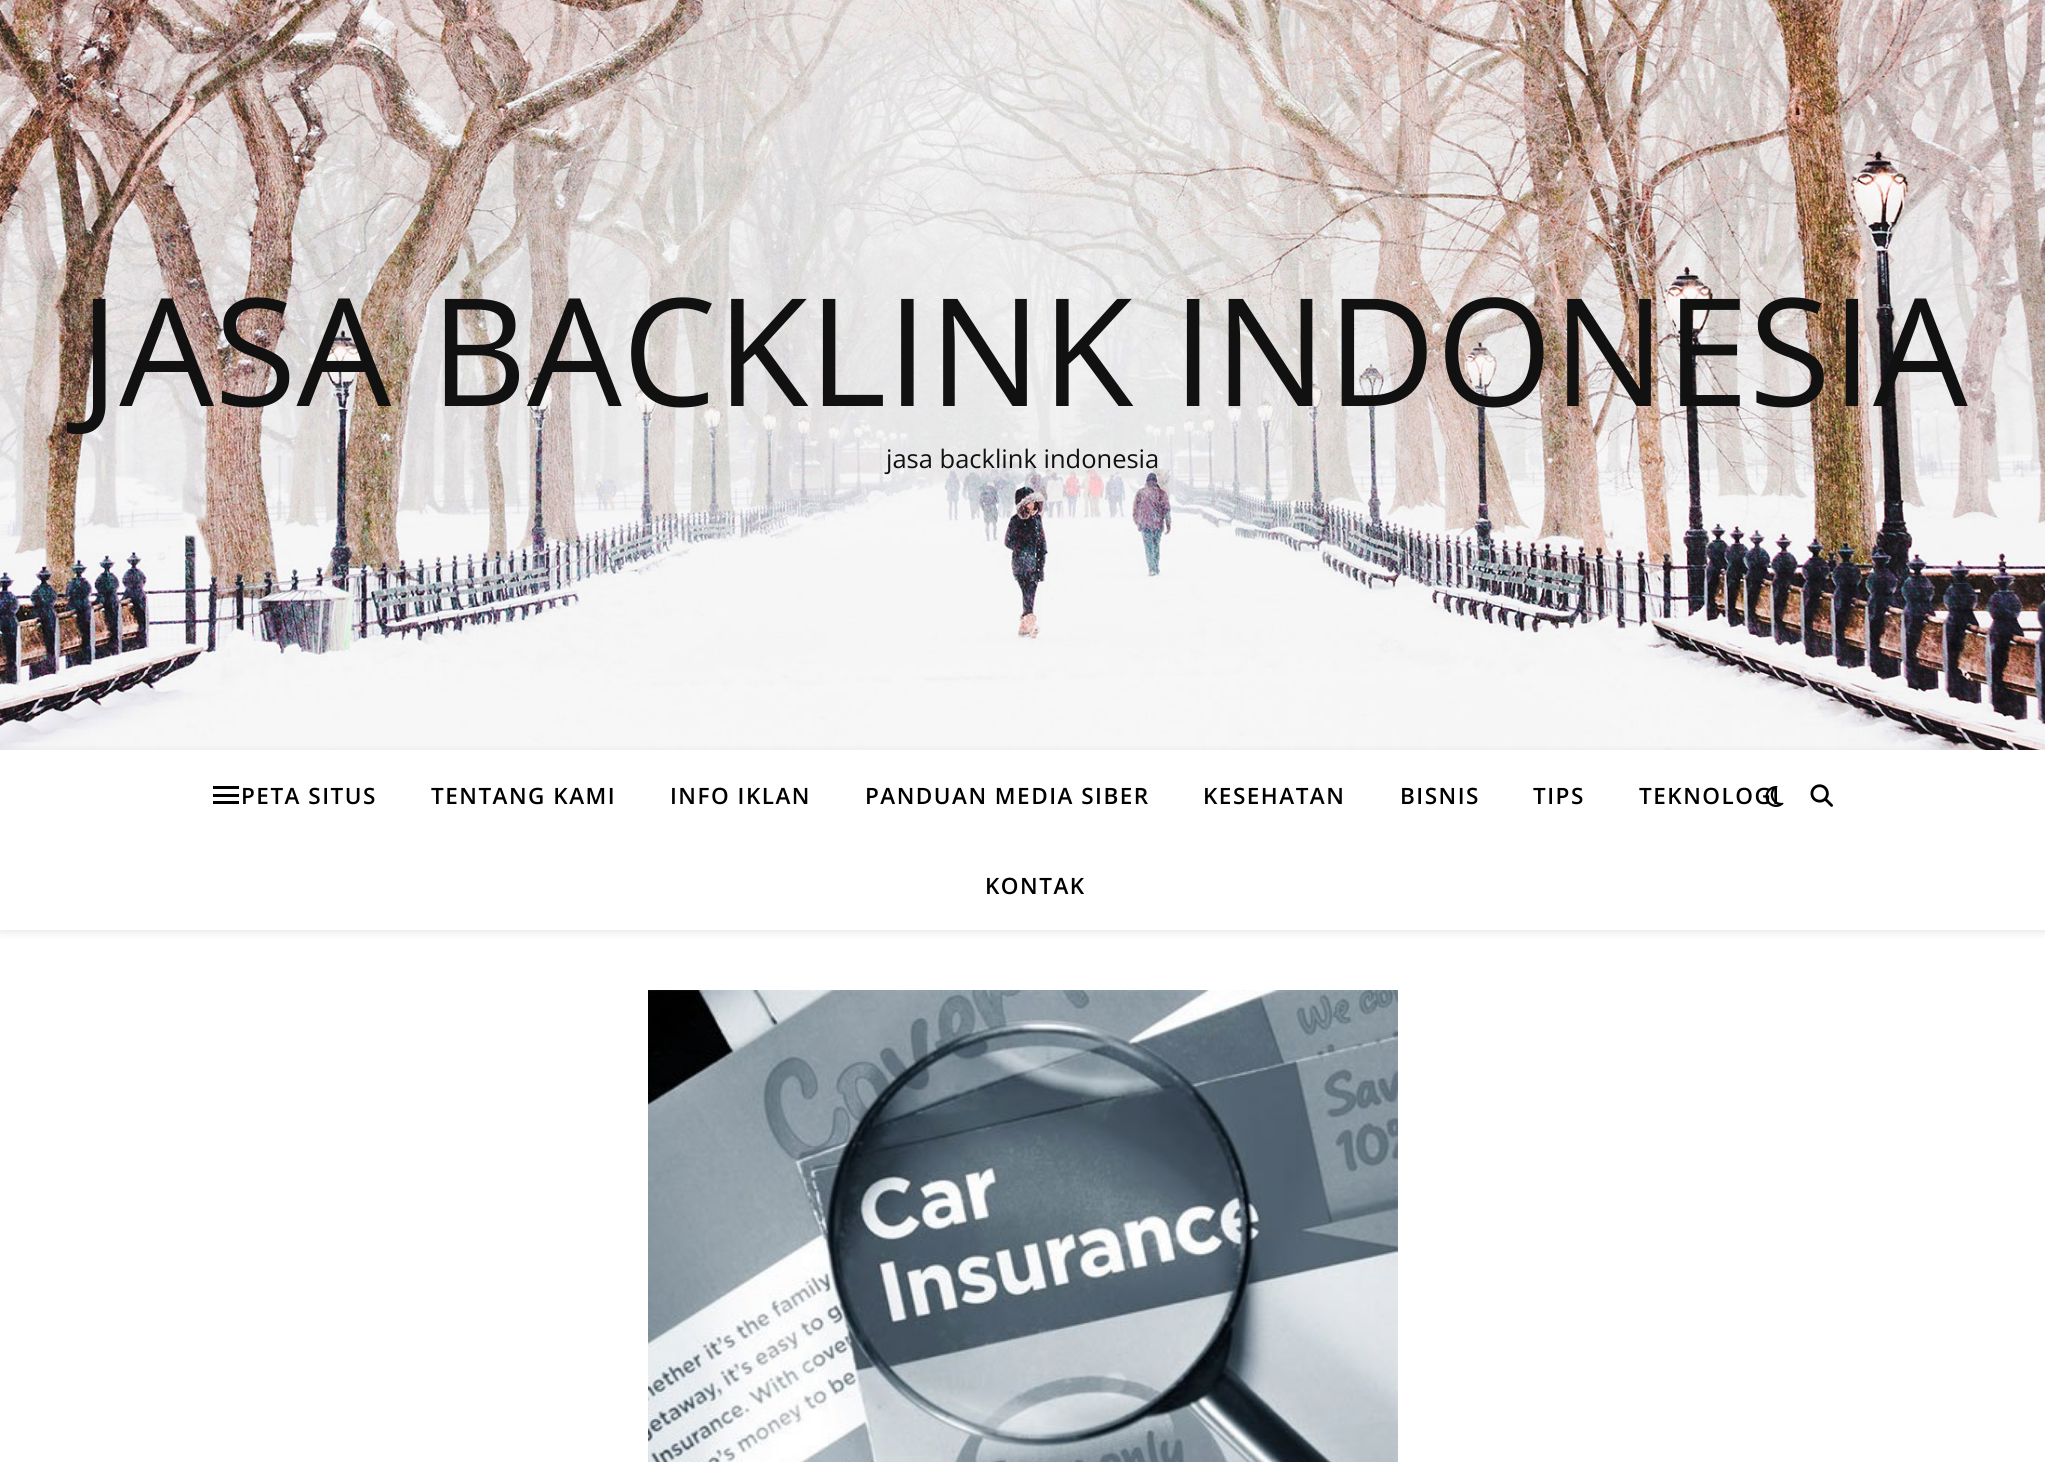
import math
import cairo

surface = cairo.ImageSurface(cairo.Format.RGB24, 2045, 1462)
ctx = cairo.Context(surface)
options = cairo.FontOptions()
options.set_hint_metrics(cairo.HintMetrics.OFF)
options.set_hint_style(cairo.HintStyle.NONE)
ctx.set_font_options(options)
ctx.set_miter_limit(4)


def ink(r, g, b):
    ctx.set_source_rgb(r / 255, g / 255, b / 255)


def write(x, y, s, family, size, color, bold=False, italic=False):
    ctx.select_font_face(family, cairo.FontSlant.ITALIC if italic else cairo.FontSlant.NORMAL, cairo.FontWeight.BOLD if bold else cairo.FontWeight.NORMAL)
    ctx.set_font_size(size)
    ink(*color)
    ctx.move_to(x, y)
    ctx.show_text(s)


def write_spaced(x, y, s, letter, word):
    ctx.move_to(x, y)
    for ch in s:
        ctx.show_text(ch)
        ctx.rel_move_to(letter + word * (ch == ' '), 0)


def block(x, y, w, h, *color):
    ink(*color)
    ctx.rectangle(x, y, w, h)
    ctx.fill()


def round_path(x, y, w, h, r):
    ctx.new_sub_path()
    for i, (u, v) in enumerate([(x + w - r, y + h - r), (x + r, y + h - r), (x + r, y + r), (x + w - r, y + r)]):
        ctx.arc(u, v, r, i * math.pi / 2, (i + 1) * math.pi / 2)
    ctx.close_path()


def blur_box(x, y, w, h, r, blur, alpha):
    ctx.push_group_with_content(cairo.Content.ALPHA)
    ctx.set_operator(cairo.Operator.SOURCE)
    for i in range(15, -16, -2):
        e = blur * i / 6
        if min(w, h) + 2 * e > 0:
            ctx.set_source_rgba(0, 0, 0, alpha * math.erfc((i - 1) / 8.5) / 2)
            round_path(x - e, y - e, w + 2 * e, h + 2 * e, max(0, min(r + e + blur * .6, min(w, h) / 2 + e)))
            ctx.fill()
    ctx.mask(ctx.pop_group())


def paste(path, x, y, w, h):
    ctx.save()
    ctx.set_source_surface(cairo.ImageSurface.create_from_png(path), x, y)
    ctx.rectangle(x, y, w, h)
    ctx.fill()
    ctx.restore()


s1 = dict(family="Open Sans", size=150, color=(17, 17, 17))
s2 = dict(family="Open Sans", size=25.5, color=(17, 17, 17))

ink(255, 255, 255)
ctx.paint()
paste("pic1.png", 0, 0, 2045, 750)
write(79, 406, "JASA BACKLINK INDONESIA", **s1)
write(886, 468, "jasa backlink indonesia", **s2)
ctx.save()
ctx.set_fill_rule(cairo.FillRule.EVEN_ODD)
ctx.new_path()
ctx.move_to(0, 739)
ctx.line_to(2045, 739)
ctx.line_to(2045, 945)
ctx.line_to(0, 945)
ctx.close_path()
ctx.move_to(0, 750)
ctx.line_to(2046, 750)
ctx.line_to(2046, 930)
ctx.line_to(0, 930)
ctx.close_path()
ctx.clip()
ink(0, 0, 0)
blur_box(0, 752, 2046, 180, 0, 4, 0.1)
ctx.restore()
block(213, 786, 26, 3, 0, 0, 0)
block(213, 794, 26, 3, 0, 0, 0)
block(213, 801, 26, 3, 0, 0, 0)
ctx.select_font_face("Open Sans SemiBold")
ctx.set_font_size(22.5)
write_spaced(241, 804, "PETA SITUS", 1.5, 0)
write_spaced(431, 804, "TENTANG KAMI", 1.5, 0)
write_spaced(670, 804, "INFO IKLAN", 1.5, 0)
write_spaced(865, 804, "PANDUAN MEDIA SIBER", 1.5, 0)
write_spaced(1203, 804, "KESEHATAN", 1.5, 0)
write_spaced(1400, 804, "BISNIS", 1.5, 0)
write_spaced(1533, 804, "TIPS", 1.5, 0)
write_spaced(1639, 804, "TEKNOLOGI", 1.5, 0)
write_spaced(985, 894, "KONTAK", 1.5, 0)
paste("pic2.png", 1765, 786, 19, 21)
paste("pic3.png", 1810, 784, 23, 23)
paste("pic4.png", 648, 990, 750, 472)
surface.write_to_png("screenshot.png")
